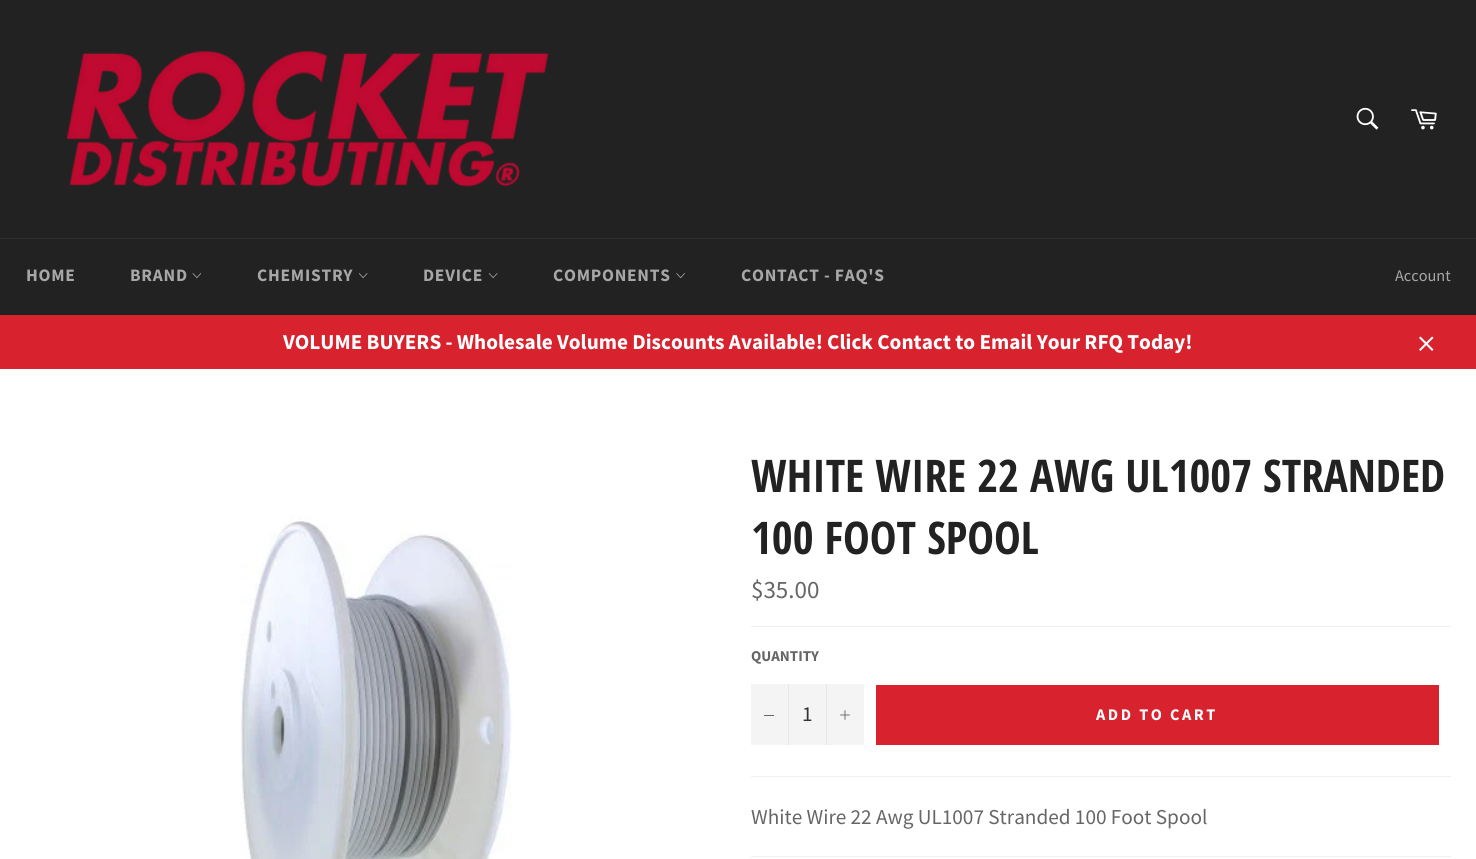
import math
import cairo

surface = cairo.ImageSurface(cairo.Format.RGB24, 1476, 859)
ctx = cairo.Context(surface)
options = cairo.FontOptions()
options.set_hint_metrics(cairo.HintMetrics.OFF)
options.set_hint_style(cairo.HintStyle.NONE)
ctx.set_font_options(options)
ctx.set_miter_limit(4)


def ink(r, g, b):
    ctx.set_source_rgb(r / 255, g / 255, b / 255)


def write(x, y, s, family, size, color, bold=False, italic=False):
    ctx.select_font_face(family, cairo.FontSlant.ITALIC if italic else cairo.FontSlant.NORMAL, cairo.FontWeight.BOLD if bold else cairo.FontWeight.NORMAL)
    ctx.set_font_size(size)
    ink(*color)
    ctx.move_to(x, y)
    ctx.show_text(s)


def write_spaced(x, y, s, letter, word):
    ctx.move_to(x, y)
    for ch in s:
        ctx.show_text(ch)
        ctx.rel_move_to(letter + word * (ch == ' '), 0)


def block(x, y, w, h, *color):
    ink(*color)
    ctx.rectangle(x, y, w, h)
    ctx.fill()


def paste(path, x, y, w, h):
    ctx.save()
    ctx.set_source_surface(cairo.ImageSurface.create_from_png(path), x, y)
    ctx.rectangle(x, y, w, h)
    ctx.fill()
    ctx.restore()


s1 = dict(family="Source Sans Pro", size=16.25, color=(167, 167, 167))
s2 = dict(family="Source Sans Pro", size=21.25, color=(255, 255, 255), bold=True)
s3 = dict(family="Open Sans Condensed", size=45, color=(34, 34, 34), bold=True)
s4 = dict(family="Source Sans Pro", size=25, color=(102, 102, 102))
s5 = dict(family="Source Sans Pro", size=15, color=(102, 102, 102), bold=True)
s6 = dict(family="Source Sans Pro", size=21.25, color=(51, 51, 51))
s7 = dict(family="Source Sans Pro", size=21.25, color=(102, 102, 102))

ink(34, 34, 34)
ctx.paint()
paste("pic1.png", 66, 51, 483, 136)
paste("pic2.png", 1356, 107, 23, 23)
paste("pic3.png", 1411, 109, 26, 21)
block(0, 238, 1476, 1, 47, 47, 47)
ctx.select_font_face("Source Sans Pro", cairo.FontSlant.NORMAL, cairo.FontWeight.BOLD)
ctx.set_font_size(17.5)
ink(167, 167, 167)
write_spaced(26, 281, "HOME", 0.75, 0)
write_spaced(130, 281, "BRAND", 0.75, 0)
paste("pic4.png", 192, 273, 10, 6)
write_spaced(257, 281, "CHEMISTRY", 0.75, 0)
paste("pic5.png", 358, 273, 10, 6)
write_spaced(423, 281, "DEVICE", 0.75, 0)
paste("pic5.png", 488, 273, 10, 6)
write_spaced(553, 281, "COMPONENTS", 0.75, 0)
paste("pic6.png", 676, 273, 9, 6)
write_spaced(741, 281, "CONTACT - FAQ'S", 0.75, 0)
write(1395, 281, "Account", **s1)
block(0, 315, 1476, 54, 216, 35, 47)
write(283, 349, "VOLUME BUYERS - Wholesale Volume Discounts Available! Click Contact to Email Your RFQ Today!", **s2)
paste("pic7.png", 1419, 336, 15, 15)
block(0, 369, 1476, 490, 255, 255, 255)
paste("pic8.png", 240, 515, 272, 344)
write(751, 492, "WHITE WIRE 22 AWG UL1007 STRANDED", **s3)
write(751, 554, "100 FOOT SPOOL", **s3)
write(751, 598, "$35.00", **s4)
block(751, 626, 700, 1, 240, 240, 240)
write(751, 661, "QUANTITY", **s5)
block(751, 684, 113, 61, 244, 244, 244)
block(788, 684, 1, 61, 231, 231, 231)
block(764, 715, 10, 1, 102, 102, 102)
write(802, 721, "1", **s6)
block(826, 684, 1, 61, 231, 231, 231)
paste("pic9.png", 840, 710, 10, 10)
block(876, 685, 563, 60, 216, 35, 47)
ctx.select_font_face("Source Sans Pro", cairo.FontSlant.NORMAL, cairo.FontWeight.BOLD)
ctx.set_font_size(16.25)
ink(255, 255, 255)
write_spaced(1096, 720, "ADD TO CART", 2.5, 0)
block(751, 776, 700, 1, 240, 240, 240)
write(751, 824, "White Wire 22 Awg UL1007 Stranded 100 Foot Spool", **s7)
block(751, 856, 700, 1, 240, 240, 240)
surface.write_to_png("screenshot.png")
